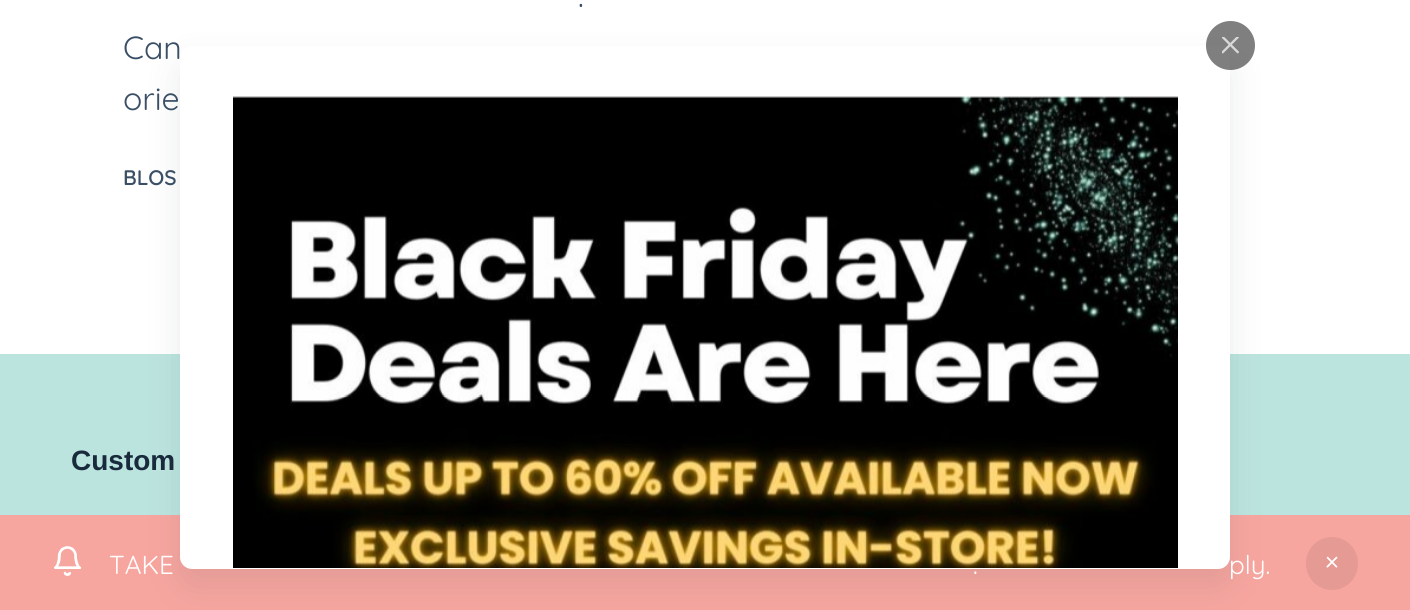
import math
import cairo

surface = cairo.ImageSurface(cairo.Format.RGB24, 1410, 610)
ctx = cairo.Context(surface)
options = cairo.FontOptions()
options.set_hint_metrics(cairo.HintMetrics.OFF)
options.set_hint_style(cairo.HintStyle.NONE)
ctx.set_font_options(options)
ctx.set_miter_limit(4)


def ink(r, g, b):
    ctx.set_source_rgb(r / 255, g / 255, b / 255)


def write(x, y, s, family, size, color, bold=False, italic=False):
    ctx.select_font_face(family, cairo.FontSlant.ITALIC if italic else cairo.FontSlant.NORMAL, cairo.FontWeight.BOLD if bold else cairo.FontWeight.NORMAL)
    ctx.set_font_size(size)
    ink(*color)
    ctx.move_to(x, y)
    ctx.show_text(s)


def block(x, y, w, h, *color):
    ink(*color)
    ctx.rectangle(x, y, w, h)
    ctx.fill()


def round_path(x, y, w, h, r):
    ctx.new_sub_path()
    for i, (u, v) in enumerate([(x + w - r, y + h - r), (x + r, y + h - r), (x + r, y + r), (x + w - r, y + r)]):
        ctx.arc(u, v, r, i * math.pi / 2, (i + 1) * math.pi / 2)
    ctx.close_path()


def blur_box(x, y, w, h, r, blur, alpha):
    ctx.push_group_with_content(cairo.Content.ALPHA)
    ctx.set_operator(cairo.Operator.SOURCE)
    for i in range(15, -16, -2):
        e = blur * i / 6
        if min(w, h) + 2 * e > 0:
            ctx.set_source_rgba(0, 0, 0, alpha * math.erfc((i - 1) / 8.5) / 2)
            round_path(x - e, y - e, w + 2 * e, h + 2 * e, max(0, min(r + e + blur * .6, min(w, h) / 2 + e)))
            ctx.fill()
    ctx.mask(ctx.pop_group())


def paste(path, x, y, w, h):
    ctx.save()
    ctx.set_source_surface(cairo.ImageSurface.create_from_png(path), x, y)
    ctx.rectangle(x, y, w, h)
    ctx.fill()
    ctx.restore()


s1 = dict(family="Quicksand", size=32, color=(58, 79, 102))
s2 = dict(family="Quicksand SemiBold", size=21, color=(58, 79, 102))
s3 = dict(family="Liberation Sans", size=28, color=(25, 42, 61), bold=True)
s4 = dict(family="Quicksand", size=26, color=(255, 255, 255))
s5 = dict(family="Quicksand", size=30, color=(255, 255, 255))

ink(255, 255, 255)
ctx.paint()
write(578, 7, ".", **s1)
write(123, 59, "Can", **s1)
write(123, 110, "orie", **s1)
write(123, 185, "BLOS", **s2)
block(0, 354, 1410, 161, 188, 228, 222)
write(71, 470, "Custom", **s3)
block(0, 515, 1410, 95, 247, 166, 159)
ink(41, 51, 61)
blur_box(180, 63, 1050, 523, 12, 17.5, 0.1)
ink(255, 255, 255)
round_path(180, 46, 1050, 523, 12)
ctx.fill()
ctx.set_source_rgba(0, 0, 0, 0.5)
ctx.arc(1230.5, 45.5, 24.5, 0, 2 * math.pi)
ctx.fill()
paste("pic1.png", 1222, 37, 17, 17)
paste("pic2.png", 233, 96, 945, 472)
paste("pic3.png", 54, 546, 28, 30)
write(109, 574, "TAKE", **s4)
write(1229, 574, "ply.", **s4)
ink(230, 154, 148)
round_path(1306, 537, 52, 53, 26)
ctx.fill()
write(1325, 572, "×", **s5)
write(973, 574, ".", **s4)
surface.write_to_png("screenshot.png")
